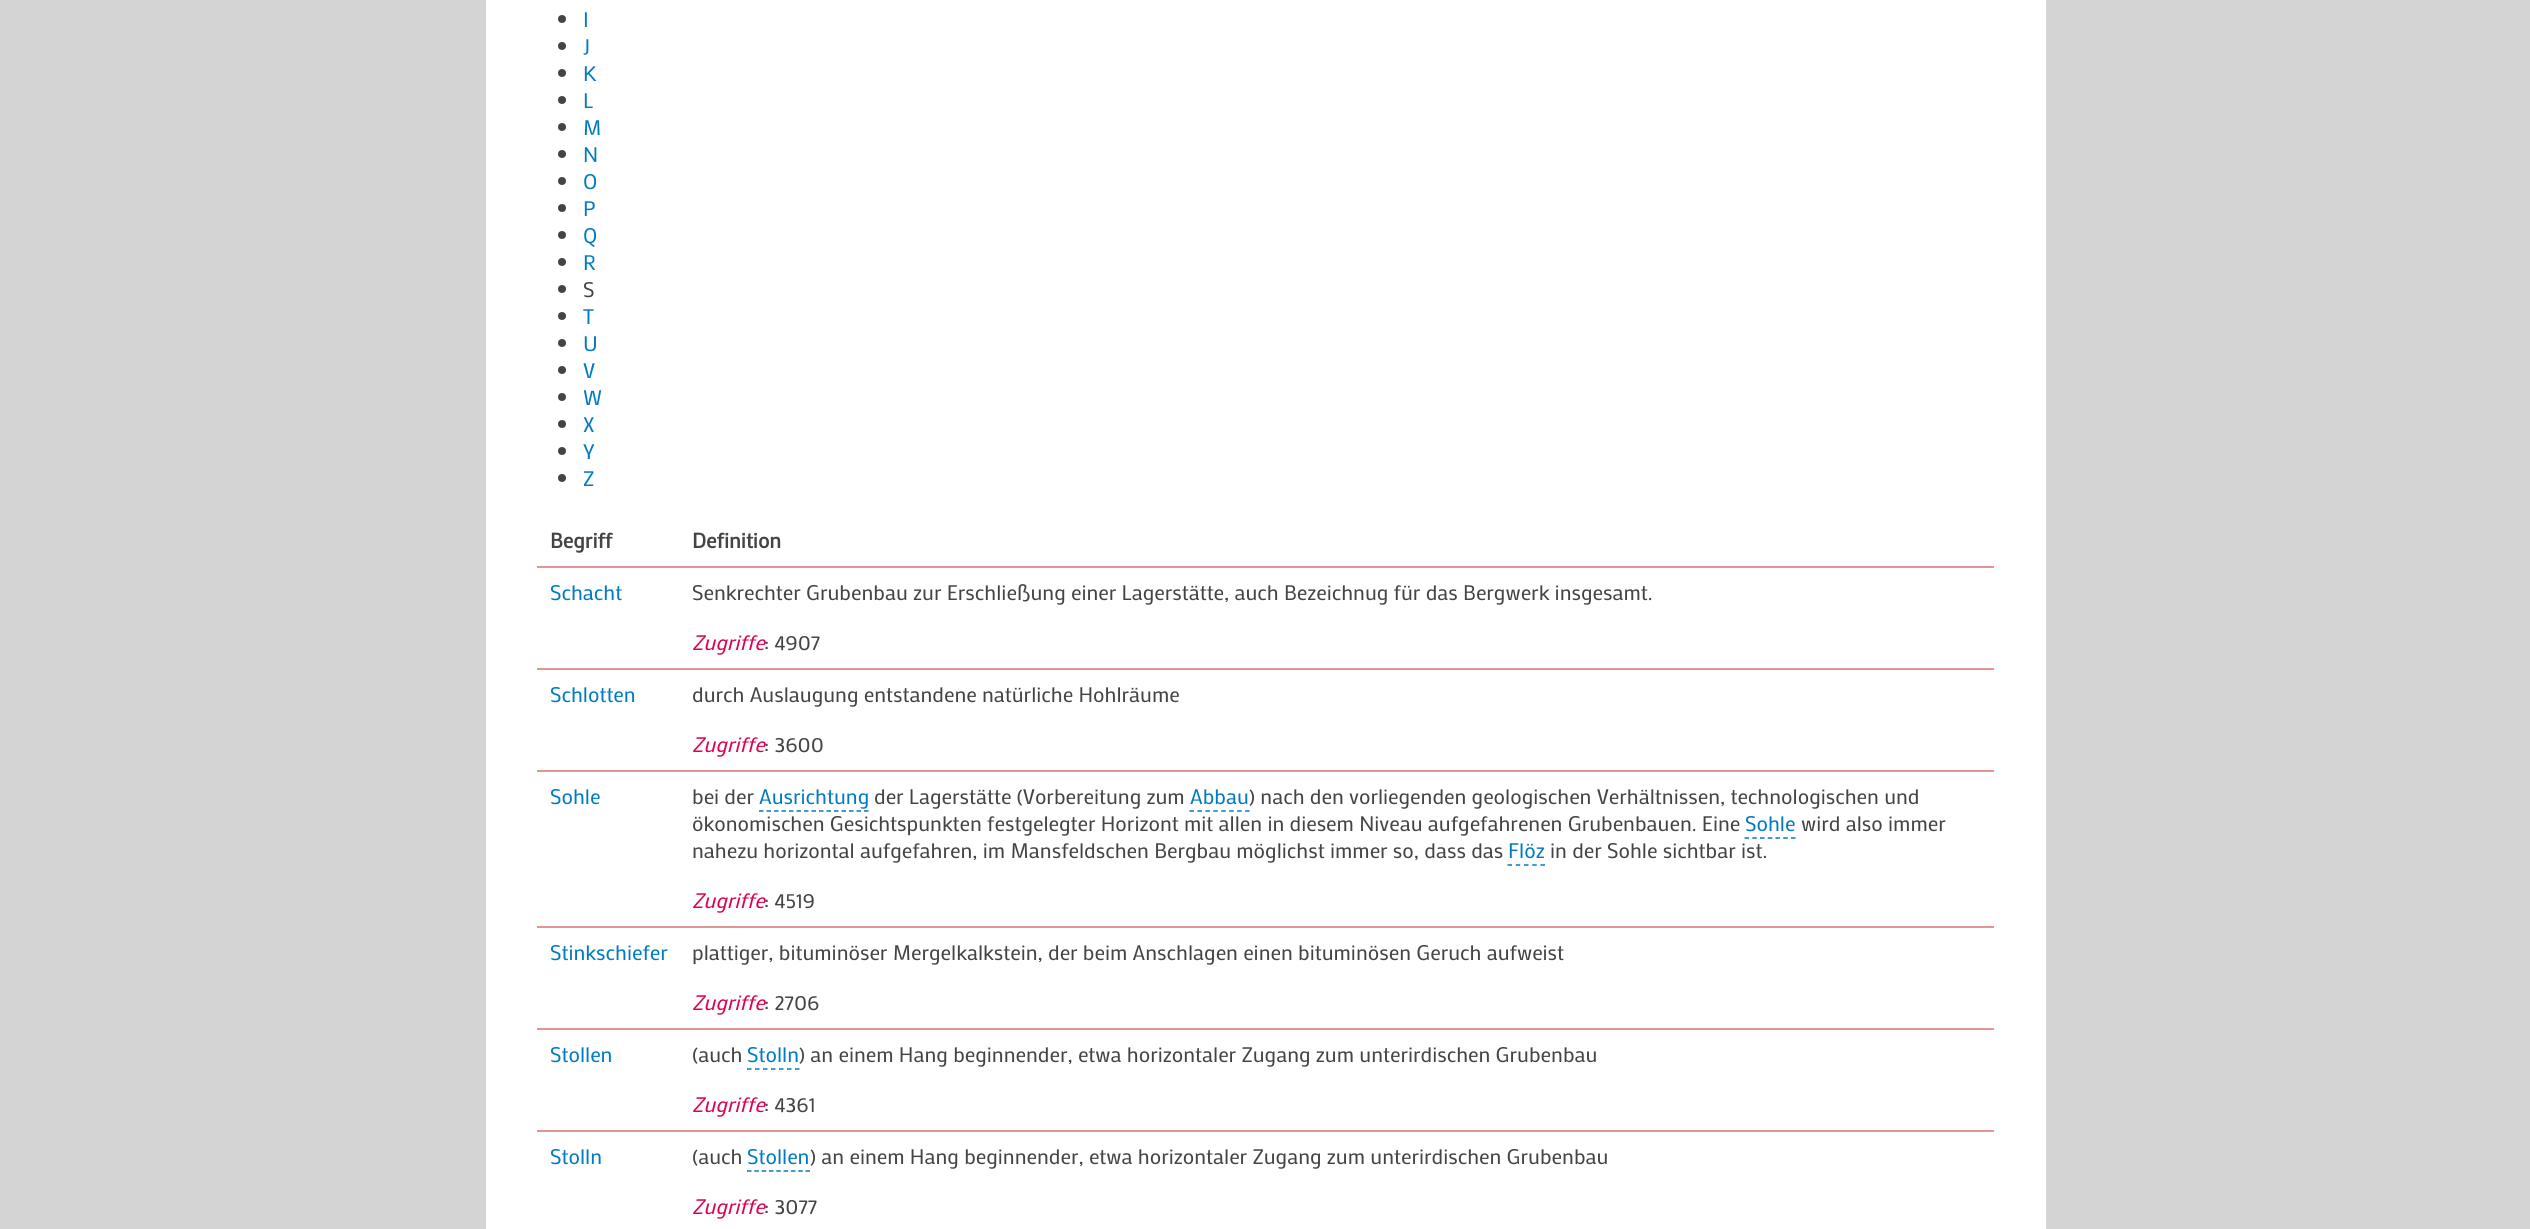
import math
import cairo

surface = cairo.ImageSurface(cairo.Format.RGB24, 2530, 1229)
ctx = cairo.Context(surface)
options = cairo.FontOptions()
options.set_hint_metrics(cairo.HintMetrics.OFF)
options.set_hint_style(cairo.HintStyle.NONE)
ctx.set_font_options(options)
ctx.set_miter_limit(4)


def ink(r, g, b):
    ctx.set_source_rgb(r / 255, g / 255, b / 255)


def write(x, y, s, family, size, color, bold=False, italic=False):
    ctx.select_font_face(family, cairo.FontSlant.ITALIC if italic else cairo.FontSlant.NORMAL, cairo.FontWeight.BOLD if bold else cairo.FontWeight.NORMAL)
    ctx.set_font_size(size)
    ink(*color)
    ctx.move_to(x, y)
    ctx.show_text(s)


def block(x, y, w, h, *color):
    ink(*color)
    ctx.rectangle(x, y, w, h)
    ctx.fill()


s1 = dict(family="Mako", size=21, color=(0, 122, 195))
s2 = dict(family="Mako", size=21, color=(68, 68, 68))
s3 = dict(family="Mako", size=21, color=(68, 68, 68), bold=True)
s4 = dict(family="Mako", size=21, color=(221, 0, 85), italic=True)

ink(212, 212, 212)
ctx.paint()
block(486, 0, 1560, 1229, 255, 255, 255)
ink(68, 68, 68)
ctx.arc(562, 19, 4, 0, 2 * math.pi)
ctx.fill()
write(583, 27, "I", **s1)
ink(68, 68, 68)
ctx.new_path()
ctx.arc(562, 46, 4, 0, 2 * math.pi)
ctx.fill()
write(583, 54, "J", **s1)
ink(68, 68, 68)
ctx.new_path()
ctx.arc(562, 73, 4, 0, 2 * math.pi)
ctx.fill()
write(583, 81, "K", **s1)
ink(68, 68, 68)
ctx.new_path()
ctx.arc(562, 100, 4, 0, 2 * math.pi)
ctx.fill()
write(583, 108, "L", **s1)
ink(68, 68, 68)
ctx.new_path()
ctx.arc(562, 127, 4, 0, 2 * math.pi)
ctx.fill()
write(583, 135, "M", **s1)
ink(68, 68, 68)
ctx.new_path()
ctx.arc(562, 154, 4, 0, 2 * math.pi)
ctx.fill()
write(583, 162, "N", **s1)
ink(68, 68, 68)
ctx.new_path()
ctx.arc(562, 181, 4, 0, 2 * math.pi)
ctx.fill()
write(583, 189, "O", **s1)
ink(68, 68, 68)
ctx.new_path()
ctx.arc(562, 208, 4, 0, 2 * math.pi)
ctx.fill()
write(583, 216, "P", **s1)
ink(68, 68, 68)
ctx.new_path()
ctx.arc(562, 235, 4, 0, 2 * math.pi)
ctx.fill()
write(583, 243, "Q", **s1)
ink(68, 68, 68)
ctx.new_path()
ctx.arc(562, 262, 4, 0, 2 * math.pi)
ctx.fill()
write(583, 270, "R", **s1)
ink(68, 68, 68)
ctx.new_path()
ctx.arc(562, 289, 4, 0, 2 * math.pi)
ctx.fill()
write(583, 297, "S", **s2)
ctx.new_path()
ctx.arc(562, 316, 4, 0, 2 * math.pi)
ctx.fill()
write(583, 324, "T", **s1)
ink(68, 68, 68)
ctx.new_path()
ctx.arc(562, 343, 4, 0, 2 * math.pi)
ctx.fill()
write(583, 351, "U", **s1)
ink(68, 68, 68)
ctx.new_path()
ctx.arc(562, 370, 4, 0, 2 * math.pi)
ctx.fill()
write(583, 378, "V", **s1)
ink(68, 68, 68)
ctx.new_path()
ctx.arc(562, 397, 4, 0, 2 * math.pi)
ctx.fill()
write(583, 405, "W", **s1)
ink(68, 68, 68)
ctx.new_path()
ctx.arc(562, 424, 4, 0, 2 * math.pi)
ctx.fill()
write(583, 432, "X", **s1)
ink(68, 68, 68)
ctx.new_path()
ctx.arc(562, 451, 4, 0, 2 * math.pi)
ctx.fill()
write(583, 459, "Y", **s1)
ink(68, 68, 68)
ctx.new_path()
ctx.arc(562, 478, 4, 0, 2 * math.pi)
ctx.fill()
write(583, 486, "Z", **s1)
write(550, 548, "Begriff", **s3)
write(692, 548, "Definition", **s3)
write(550, 600, "Schacht", **s1)
block(537, 566, 1457, 2, 224, 150, 150)
write(692, 600, "Senkrechter Grubenbau zur Erschließung einer Lagerstätte, auch Bezeichnug für das Bergwerk insgesamt.", **s2)
write(692, 650, "Zugriffe", **s4)
write(764, 650, ": 4907", **s2)
write(550, 702, "Schlotten", **s1)
block(537, 668, 1457, 2, 224, 150, 150)
write(692, 702, "durch Auslaugung entstandene natürliche Hohlräume", **s2)
write(692, 752, "Zugriffe", **s4)
write(764, 752, ": 3600", **s2)
write(550, 804, "Sohle", **s1)
block(537, 770, 1457, 2, 224, 150, 150)
write(692, 804, "bei der", **s2)
write(759, 804, "Ausrichtung", **s1)
ctx.new_path()
ctx.move_to(759, 811)
ctx.line_to(868.5, 811)
ctx.set_line_width(1.5)
ctx.set_dash([4.5, 3])
ctx.stroke()
write(874, 804, "der Lagerstätte (Vorbereitung zum", **s2)
write(1190, 804, "Abbau", **s1)
ctx.new_path()
ctx.move_to(1189.5, 811)
ctx.line_to(1249.5, 811)
ctx.set_dash([4.5, 3.44])
ctx.stroke()
write(1249, 804, ") nach den vorliegenden geologischen Verhältnissen, technologischen und", **s2)
write(692, 831, "ökonomischen Gesichtspunkten festgelegter Horizont mit allen in diesem Niveau aufgefahrenen Grubenbauen. Eine", **s2)
write(1745, 831, "Sohle", **s1)
ctx.new_path()
ctx.move_to(1744.5, 838)
ctx.line_to(1795.5, 838)
ctx.set_dash([4.5, 3.25])
ctx.stroke()
write(1801, 831, "wird also immer", **s2)
write(692, 858, "nahezu horizontal aufgefahren, im Mansfeldschen Bergbau möglichst immer so, dass das", **s2)
write(1508, 858, "Flöz", **s1)
ctx.new_path()
ctx.move_to(1507.5, 865)
ctx.line_to(1545, 865)
ctx.set_dash([4.5, 3.75])
ctx.stroke()
write(1550, 858, "in der Sohle sichtbar ist.", **s2)
write(692, 908, "Zugriffe", **s4)
write(764, 908, ": 4519", **s2)
write(550, 960, "Stinkschiefer", **s1)
block(537, 926, 1457, 2, 224, 150, 150)
write(692, 960, "plattiger, bituminöser Mergelkalkstein, der beim Anschlagen einen bituminösen Geruch aufweist", **s2)
write(692, 1010, "Zugriffe", **s4)
write(764, 1010, ": 2706", **s2)
write(550, 1062, "Stollen", **s1)
block(537, 1028, 1457, 2, 224, 150, 150)
write(692, 1062, "(auch", **s2)
write(747, 1062, "Stolln", **s1)
ctx.new_path()
ctx.move_to(747, 1069)
ctx.line_to(799.5, 1069)
ctx.set_dash([4.5, 3.5])
ctx.stroke()
write(799, 1062, ") an einem Hang beginnender, etwa horizontaler Zugang zum unterirdischen Grubenbau", **s2)
write(692, 1112, "Zugriffe", **s4)
write(764, 1112, ": 4361", **s2)
write(550, 1164, "Stolln", **s1)
block(537, 1130, 1457, 2, 224, 150, 150)
write(692, 1164, "(auch", **s2)
write(747, 1164, "Stollen", **s1)
ctx.new_path()
ctx.move_to(747, 1171)
ctx.line_to(810, 1171)
ctx.set_dash([4.5, 2.82])
ctx.stroke()
write(810, 1164, ") an einem Hang beginnender, etwa horizontaler Zugang zum unterirdischen Grubenbau", **s2)
write(692, 1214, "Zugriffe", **s4)
write(764, 1214, ": 3077", **s2)
surface.write_to_png("screenshot.png")
